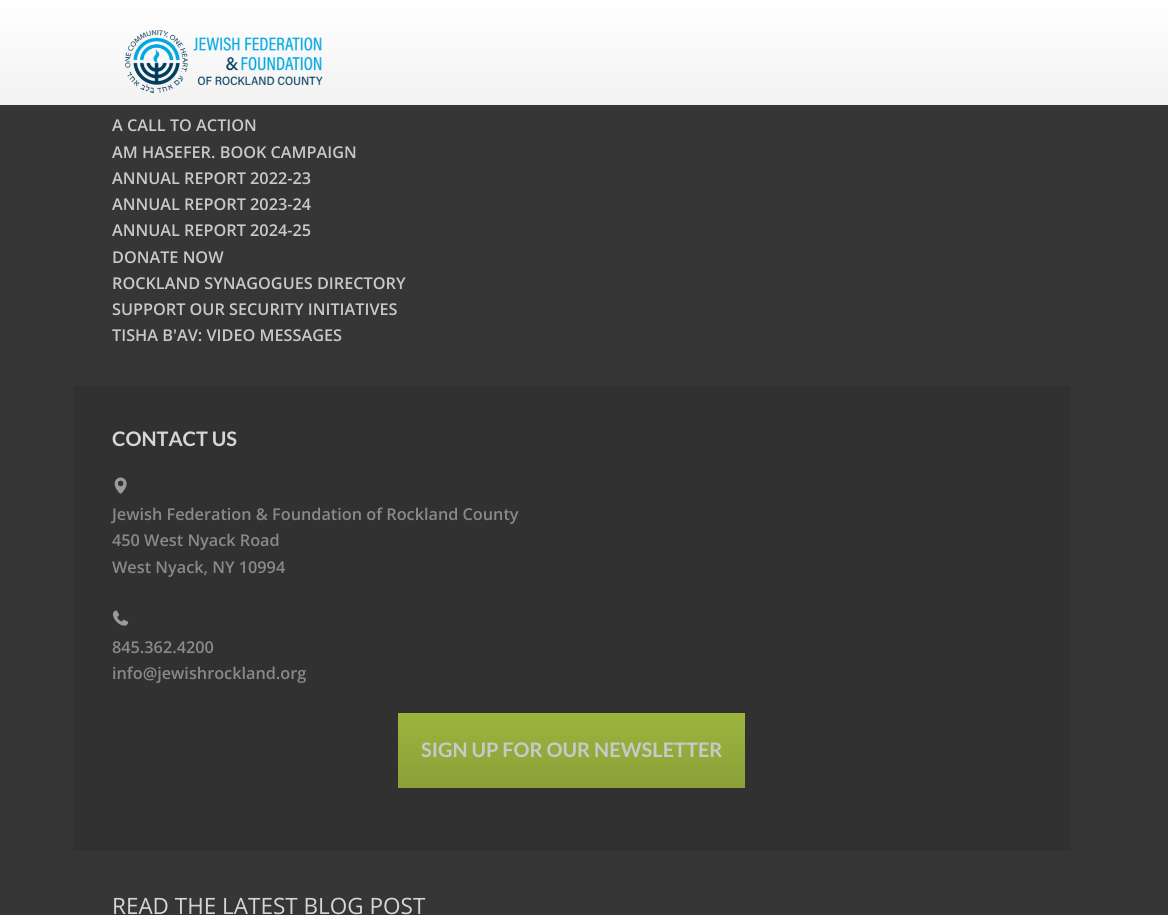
import math
import cairo

surface = cairo.ImageSurface(cairo.Format.RGB24, 1168, 915)
ctx = cairo.Context(surface)
options = cairo.FontOptions()
options.set_hint_metrics(cairo.HintMetrics.OFF)
options.set_hint_style(cairo.HintStyle.NONE)
ctx.set_font_options(options)
ctx.set_miter_limit(4)


def ink(r, g, b):
    ctx.set_source_rgb(r / 255, g / 255, b / 255)


def write(x, y, s, family, size, color, bold=False, italic=False):
    ctx.select_font_face(family, cairo.FontSlant.ITALIC if italic else cairo.FontSlant.NORMAL, cairo.FontWeight.BOLD if bold else cairo.FontWeight.NORMAL)
    ctx.set_font_size(size)
    ink(*color)
    ctx.move_to(x, y)
    ctx.show_text(s)


def block(x, y, w, h, *color):
    ink(*color)
    ctx.rectangle(x, y, w, h)
    ctx.fill()


def paste(path, x, y, w, h):
    ctx.save()
    ctx.set_source_surface(cairo.ImageSurface.create_from_png(path), x, y)
    ctx.rectangle(x, y, w, h)
    ctx.fill()
    ctx.restore()


s1 = dict(family="Open Sans SemiBold", size=16.25, color=(201, 201, 201))
s2 = dict(family="Lato", size=20, color=(214, 214, 214), bold=True)
s3 = dict(family="Open Sans SemiBold", size=16.25, color=(137, 137, 137))
s4 = dict(family="Lato", size=20, color=(201, 201, 201), bold=True)
s5 = dict(family="Open Sans", size=22.5, color=(214, 214, 214))

ink(54, 54, 54)
ctx.paint()
gradient = cairo.LinearGradient(584, 0, 584, 105)
gradient.add_color_stop_rgba(0, 1, 1, 1, 1)
gradient.add_color_stop_rgba(1, 0.949, 0.949, 0.949, 1)
ctx.set_source(gradient)
ctx.rectangle(0, 0, 1168, 105)
ctx.fill()
paste("pic1.png", 125, 30, 198, 63)
write(112, 131, "A CALL TO ACTION", **s1)
write(112, 158, "AM HASEFER. BOOK CAMPAIGN", **s1)
write(112, 184, "ANNUAL REPORT 2022-23", **s1)
write(112, 210, "ANNUAL REPORT 2023-24", **s1)
write(112, 236, "ANNUAL REPORT 2024-25", **s1)
write(112, 263, "DONATE NOW", **s1)
write(112, 289, "ROCKLAND SYNAGOGUES DIRECTORY", **s1)
write(112, 315, "SUPPORT OUR SECURITY INITIATIVES", **s1)
write(112, 341, "TISHA B'AV: VIDEO MESSAGES", **s1)
block(73, 386, 998, 465, 49, 49, 49)
write(112, 446, "CONTACT US", **s2)
paste("pic2.png", 114, 477, 13, 17)
write(112, 520, "Jewish Federation & Foundation of Rockland County", **s3)
write(112, 546, "450 West Nyack Road", **s3)
write(112, 573, "West Nyack, NY 10994", **s3)
paste("pic3.png", 113, 610, 16, 16)
write(112, 653, "845.362.4200", **s3)
write(112, 679, "info@jewishrockland.org", **s3)
gradient = cairo.LinearGradient(571, 713, 571, 788)
gradient.add_color_stop_rgba(0, 0.612, 0.706, 0.247, 1)
gradient.add_color_stop_rgba(1, 0.549, 0.631, 0.22, 1)
ctx.set_source(gradient)
ctx.rectangle(398, 713, 347, 75)
ctx.fill()
write(421, 757, "SIGN UP FOR OUR NEWSLETTER", **s4)
write(112, 914, "READ THE LATEST BLOG POST", **s5)
surface.write_to_png("screenshot.png")
